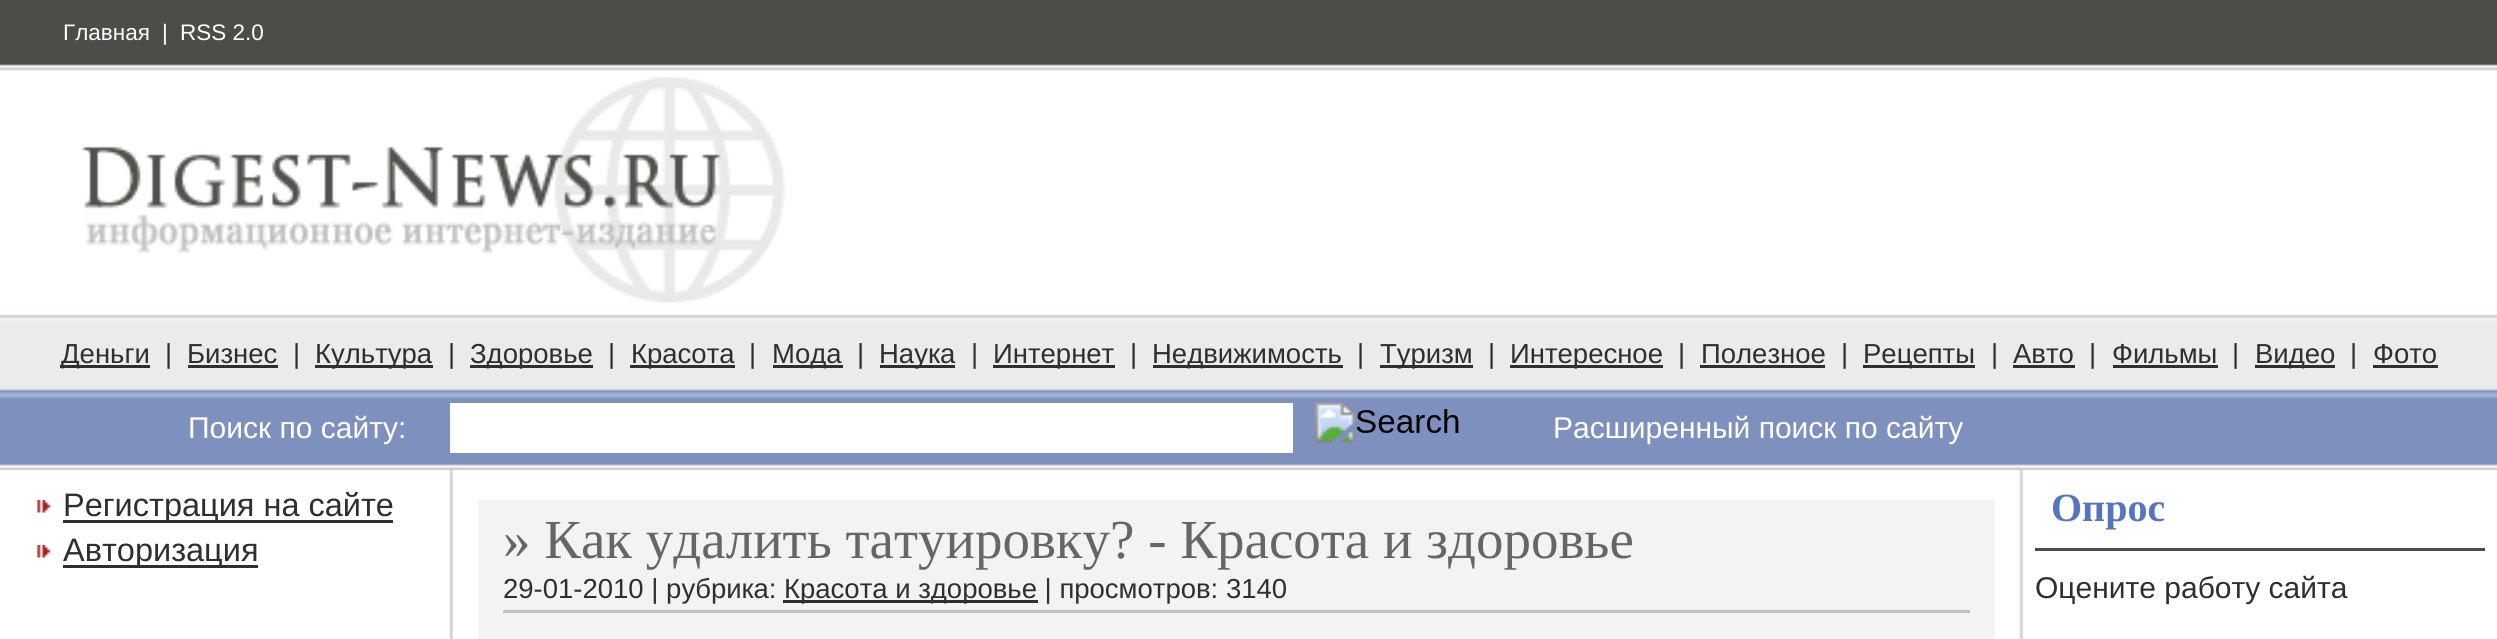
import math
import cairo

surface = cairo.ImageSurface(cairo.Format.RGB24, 2497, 639)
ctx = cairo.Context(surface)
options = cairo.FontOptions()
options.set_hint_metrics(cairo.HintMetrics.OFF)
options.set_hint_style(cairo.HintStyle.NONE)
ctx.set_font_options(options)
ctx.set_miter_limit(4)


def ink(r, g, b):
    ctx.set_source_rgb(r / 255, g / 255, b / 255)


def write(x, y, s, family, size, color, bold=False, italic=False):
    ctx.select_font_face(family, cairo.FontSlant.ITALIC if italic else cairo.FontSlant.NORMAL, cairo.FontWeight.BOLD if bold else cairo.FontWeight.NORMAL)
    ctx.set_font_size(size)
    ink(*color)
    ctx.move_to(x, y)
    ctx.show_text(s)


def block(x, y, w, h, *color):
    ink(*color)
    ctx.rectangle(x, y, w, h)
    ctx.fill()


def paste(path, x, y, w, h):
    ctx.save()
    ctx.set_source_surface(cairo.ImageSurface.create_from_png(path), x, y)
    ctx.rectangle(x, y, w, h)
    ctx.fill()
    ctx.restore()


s1 = dict(family="Liberation Sans", size=22.5, color=(255, 255, 255))
s2 = dict(family="Liberation Sans", size=27.5, color=(47, 47, 47))
s3 = dict(family="Liberation Sans", size=30, color=(255, 255, 255))
s4 = dict(family="Liberation Sans", size=32.5, color=(47, 47, 47))
s5 = dict(family="Liberation Serif", size=55, color=(102, 102, 102))
s6 = dict(family="Liberation Serif", size=40, color=(85, 117, 190), bold=True)
s7 = dict(family="Liberation Sans", size=30, color=(47, 47, 47))

ink(255, 255, 255)
ctx.paint()
paste("pic1.png", 0, 0, 2497, 470)
write(63, 40, "Главная", **s1)
write(162, 40, "|", **s1)
write(180, 40, "RSS 2.0", **s1)
paste("pic2.png", 81, 77, 705, 226)
block(60, 365, 90, 3, 47, 47, 47)
write(61, 363, "Деньги", **s2)
write(165, 363, "|", **s2)
write(187, 363, "Бизнес", **s2)
block(188, 365, 90, 3, 47, 47, 47)
write(293, 363, "|", **s2)
block(315, 365, 118, 3, 47, 47, 47)
write(315, 363, "Культура", **s2)
write(448, 363, "|", **s2)
block(470, 365, 123, 3, 47, 47, 47)
write(470, 363, "Здоровье", **s2)
write(608, 363, "|", **s2)
block(630, 365, 105, 3, 47, 47, 47)
write(631, 363, "Красота", **s2)
write(749, 363, "|", **s2)
block(773, 365, 70, 3, 47, 47, 47)
write(772, 363, "Мода", **s2)
write(857, 363, "|", **s2)
block(880, 365, 75, 3, 47, 47, 47)
write(879, 363, "Наука", **s2)
write(971, 363, "|", **s2)
block(993, 365, 122, 3, 47, 47, 47)
write(993, 363, "Интернет", **s2)
write(1130, 363, "|", **s2)
block(1153, 365, 190, 3, 47, 47, 47)
write(1152, 363, "Недвижимость", **s2)
write(1357, 363, "|", **s2)
block(1380, 365, 93, 3, 47, 47, 47)
write(1380, 363, "Туризм", **s2)
write(1488, 363, "|", **s2)
block(1510, 365, 153, 3, 47, 47, 47)
write(1510, 363, "Интересное", **s2)
write(1678, 363, "|", **s2)
write(1701, 363, "Полезное", **s2)
block(1700, 365, 125, 3, 47, 47, 47)
write(1841, 363, "|", **s2)
block(1863, 365, 112, 3, 47, 47, 47)
write(1863, 363, "Рецепты", **s2)
write(1991, 363, "|", **s2)
write(2013, 363, "Авто", **s2)
block(2013, 365, 62, 3, 47, 47, 47)
write(2089, 363, "|", **s2)
write(2112, 363, "Фильмы", **s2)
block(2113, 365, 105, 3, 47, 47, 47)
write(2232, 363, "|", **s2)
block(2255, 365, 80, 3, 47, 47, 47)
write(2255, 363, "Видео", **s2)
write(2350, 363, "|", **s2)
write(2373, 363, "Фото", **s2)
block(2373, 365, 65, 3, 47, 47, 47)
write(188, 438, "Поиск по сайту:", **s3)
block(450, 403, 843, 50, 255, 255, 255)
paste("pic3.png", 1315, 402, 144, 41)
write(1553, 438, "Расширенный поиск по сайту", **s3)
paste("pic4.png", 36, 500, 15, 13)
block(63, 520, 330, 3, 47, 47, 47)
write(63, 516, "Регистрация на сайте", **s4)
paste("pic4.png", 36, 545, 15, 13)
block(63, 565, 195, 3, 47, 47, 47)
write(63, 561, "Авторизация", **s4)
paste("pic5.png", 449, 470, 5, 169)
block(478, 500, 1517, 139, 243, 243, 243)
write(503, 558, "» Как удалить татуировку? - Красота и здоровье", **s5)
write(503, 598, "29-01-2010 | рубрика:", **s2)
block(783, 600, 255, 3, 47, 47, 47)
write(784, 598, "Красота и здоровье | просмотров: 3140", **s2)
block(503, 610, 1467, 3, 192, 192, 192)
paste("pic5.png", 2019, 470, 5, 169)
write(2051, 521, "Опрос", **s6)
block(2035, 548, 450, 3, 77, 76, 72)
write(2035, 598, "Оцените работу сайта", **s7)
surface.write_to_png("screenshot.png")
